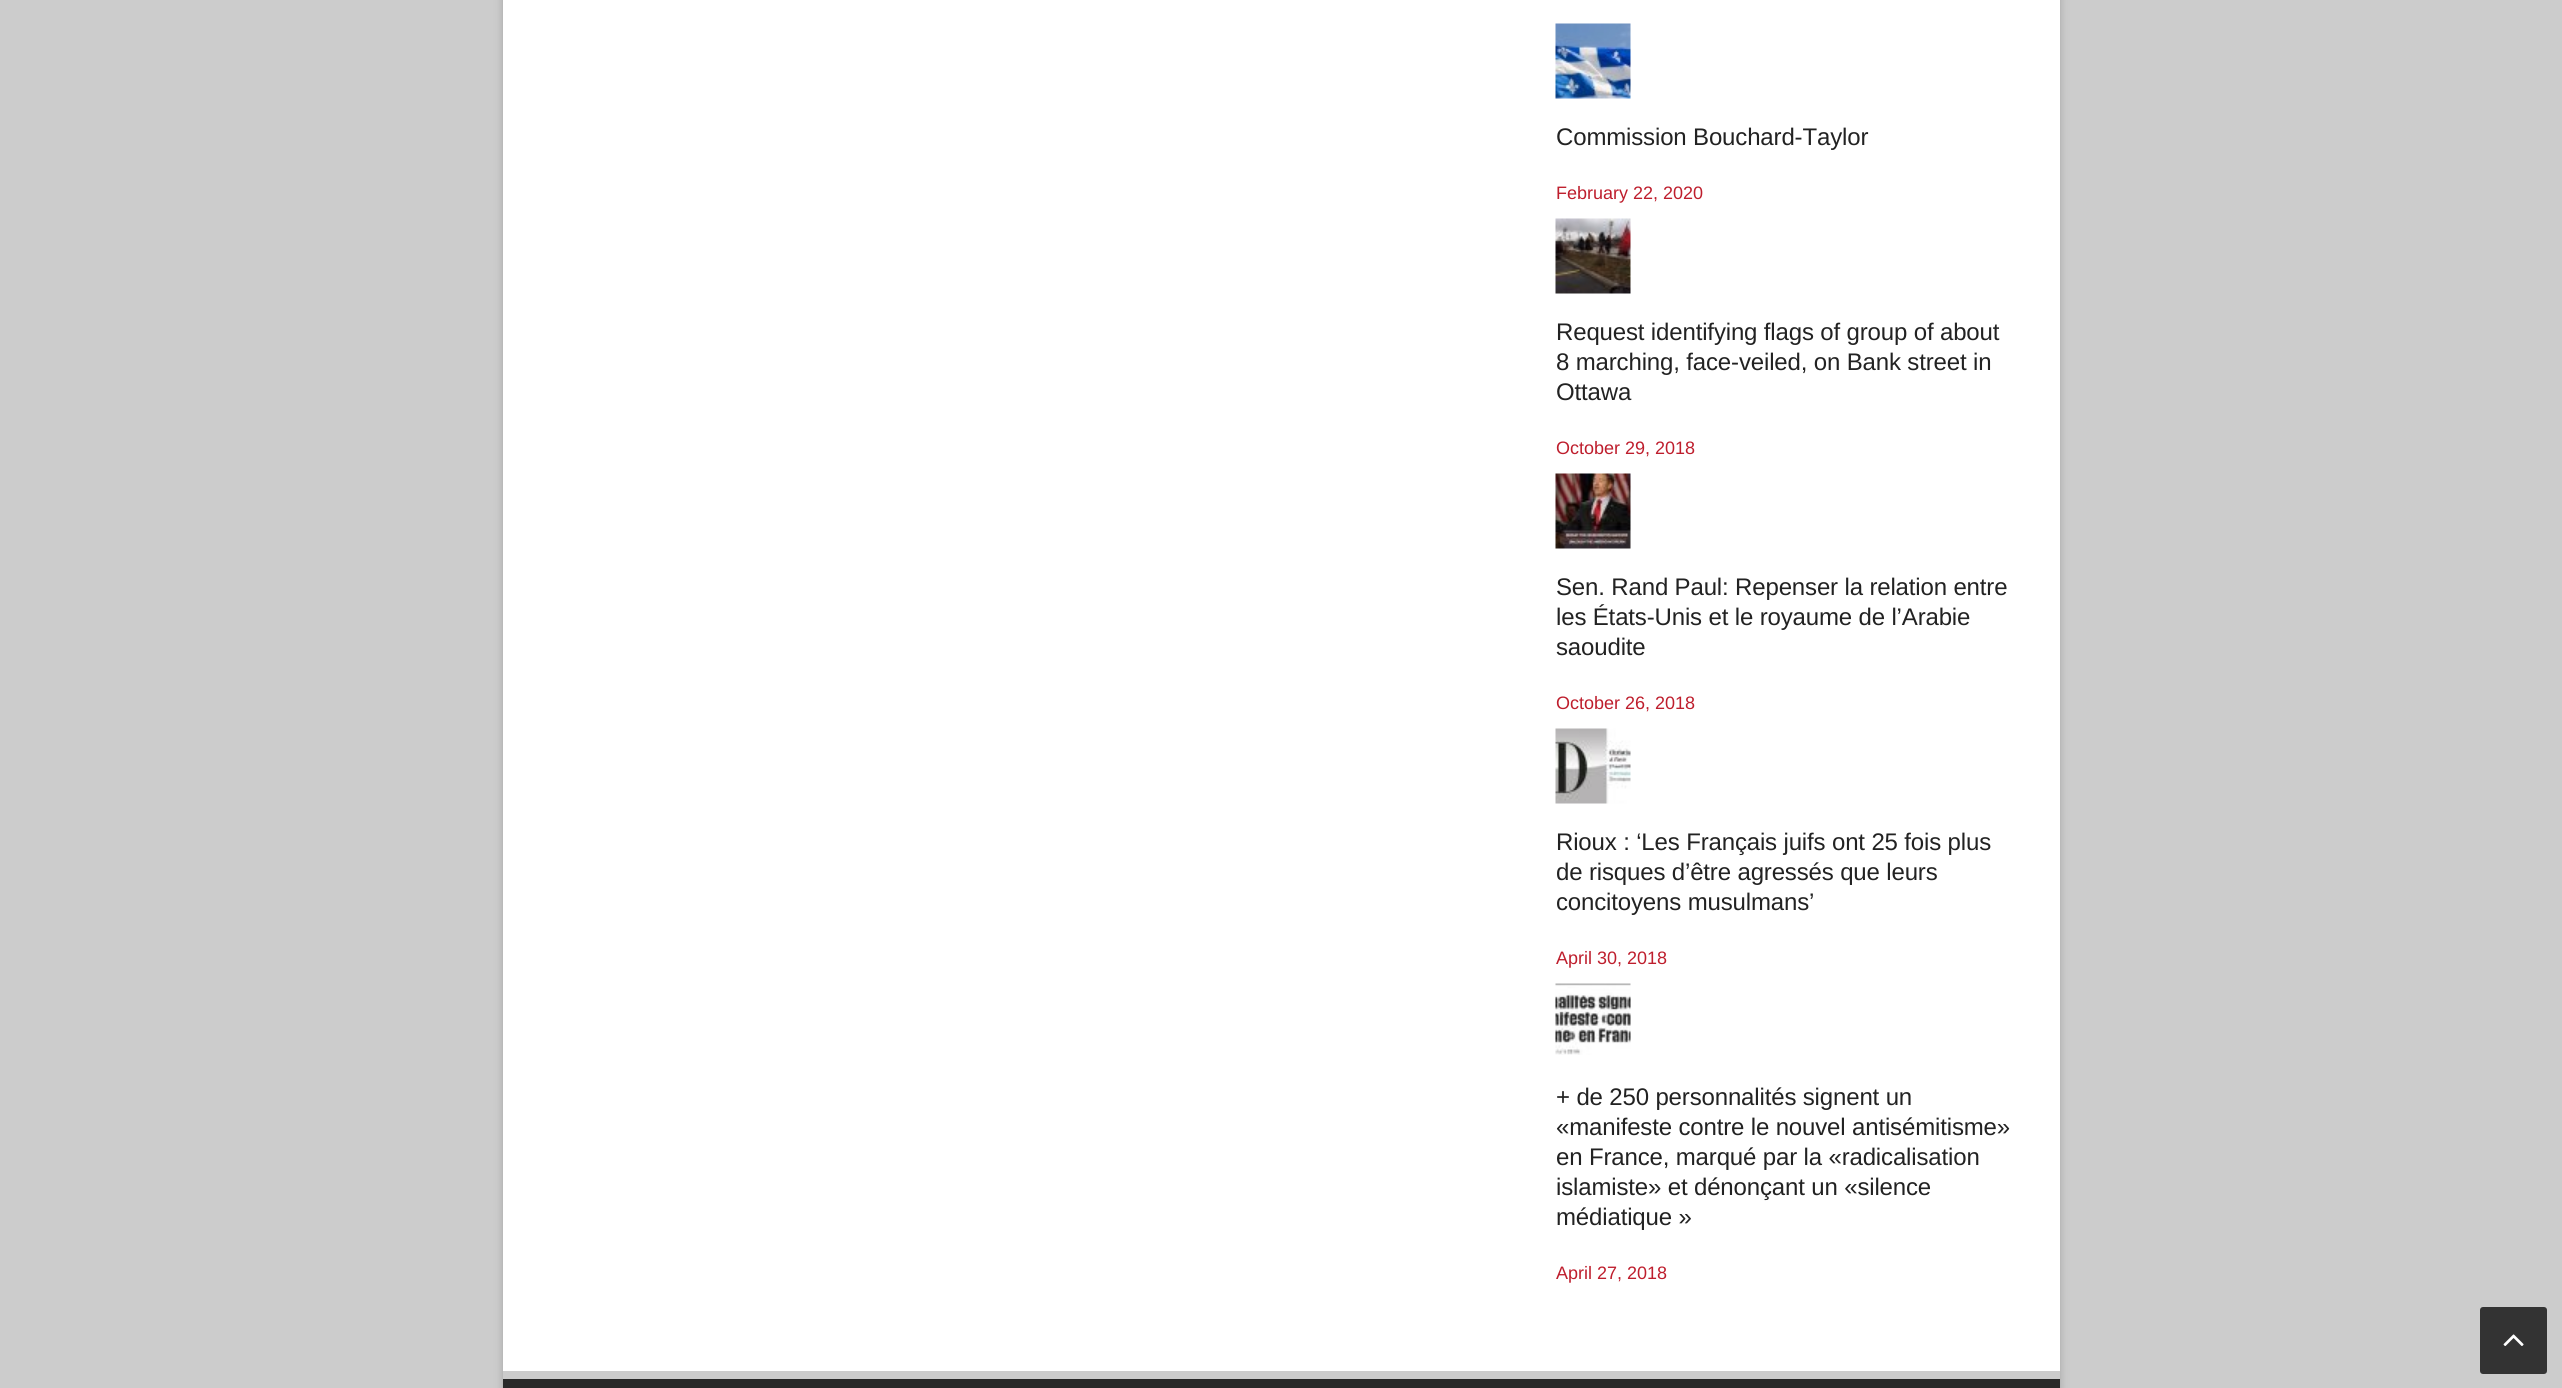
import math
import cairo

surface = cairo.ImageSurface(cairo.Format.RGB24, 2562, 1388)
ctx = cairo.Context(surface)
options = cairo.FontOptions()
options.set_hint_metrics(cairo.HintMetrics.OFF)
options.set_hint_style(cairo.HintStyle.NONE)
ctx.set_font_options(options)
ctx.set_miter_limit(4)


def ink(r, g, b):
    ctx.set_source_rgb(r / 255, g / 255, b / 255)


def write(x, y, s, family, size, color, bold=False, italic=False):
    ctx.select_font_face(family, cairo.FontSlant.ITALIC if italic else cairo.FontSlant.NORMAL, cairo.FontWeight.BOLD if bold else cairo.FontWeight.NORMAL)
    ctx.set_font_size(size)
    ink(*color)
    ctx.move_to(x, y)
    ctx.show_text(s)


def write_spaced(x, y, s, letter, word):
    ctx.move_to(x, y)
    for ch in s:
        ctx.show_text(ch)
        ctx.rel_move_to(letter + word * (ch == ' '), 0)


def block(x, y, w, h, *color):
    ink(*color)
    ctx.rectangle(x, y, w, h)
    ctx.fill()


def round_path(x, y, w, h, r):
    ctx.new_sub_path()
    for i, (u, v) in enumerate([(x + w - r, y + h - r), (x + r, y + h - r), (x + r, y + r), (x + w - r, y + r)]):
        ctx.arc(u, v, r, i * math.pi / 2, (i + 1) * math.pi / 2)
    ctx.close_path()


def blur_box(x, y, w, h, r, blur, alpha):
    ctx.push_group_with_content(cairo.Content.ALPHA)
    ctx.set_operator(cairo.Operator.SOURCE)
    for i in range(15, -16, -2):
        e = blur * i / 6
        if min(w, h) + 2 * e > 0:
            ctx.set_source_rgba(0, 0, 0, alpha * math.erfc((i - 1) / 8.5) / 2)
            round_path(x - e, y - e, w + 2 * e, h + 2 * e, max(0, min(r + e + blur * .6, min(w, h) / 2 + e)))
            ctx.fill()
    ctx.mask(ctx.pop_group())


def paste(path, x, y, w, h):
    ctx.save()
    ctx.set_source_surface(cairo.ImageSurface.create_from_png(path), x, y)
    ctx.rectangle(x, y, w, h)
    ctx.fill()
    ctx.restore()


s1 = dict(family="Liberation Sans", size=18, color=(190, 30, 45))

ink(204, 204, 204)
ctx.paint()
ink(0, 0, 0)
blur_box(503, -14, 1557, 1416, 0, 4.5, 0.2)
block(503, 0, 1557, 1371, 255, 255, 255)
paste("pic1.png", 1555, 23, 76, 76)
ctx.select_font_face("Liberation Sans")
ctx.set_font_size(24)
ink(34, 34, 34)
write_spaced(1556, 145, "Commission Bouchard-Taylor", -0.15, 0)
write(1556, 199, "February 22, 2020", **s1)
paste("pic2.png", 1555, 218, 76, 76)
ctx.set_font_size(24)
ink(34, 34, 34)
write_spaced(1556, 340, "Request identifying flags of group of about", -0.15, 0)
write_spaced(1556, 370, "8 marching, face-veiled, on Bank street in", -0.15, 0)
write_spaced(1556, 400, "Ottawa", -0.15, 0)
write(1556, 454, "October 29, 2018", **s1)
paste("pic3.png", 1555, 473, 76, 76)
ctx.set_font_size(24)
ink(34, 34, 34)
write_spaced(1556, 595, "Sen. Rand Paul: Repenser la relation entre", -0.15, 0)
write_spaced(1556, 625, "les États-Unis et le royaume de l’Arabie", -0.15, 0)
write_spaced(1556, 655, "saoudite", -0.15, 0)
write(1556, 709, "October 26, 2018", **s1)
paste("pic4.png", 1555, 728, 76, 76)
ctx.set_font_size(24)
ink(34, 34, 34)
write_spaced(1556, 850, "Rioux : ‘Les Français juifs ont 25 fois plus", -0.15, 0)
write_spaced(1556, 880, "de risques d’être agressés que leurs", -0.15, 0)
write_spaced(1556, 910, "concitoyens musulmans’", -0.15, 0)
write(1556, 964, "April 30, 2018", **s1)
paste("pic5.png", 1555, 983, 76, 72)
ctx.set_font_size(24)
ink(34, 34, 34)
write_spaced(1556, 1105, "+ de 250 personnalités signent un", -0.15, 0)
write_spaced(1556, 1135, "«manifeste contre le nouvel antisémitisme»", -0.15, 0)
write_spaced(1556, 1165, "en France, marqué par la «radicalisation", -0.15, 0)
write_spaced(1556, 1195, "islamiste» et dénonçant un «silence", -0.15, 0)
write_spaced(1556, 1225, "médiatique »", -0.15, 0)
write(1556, 1279, "April 27, 2018", **s1)
block(503, 1371, 1557, 8, 204, 204, 204)
block(503, 1379, 1557, 9, 41, 41, 41)
ink(51, 51, 51)
round_path(2480, 1307, 67, 67, 3)
ctx.fill()
paste("pic6.png", 2503, 1334, 21, 12)
surface.write_to_png("screenshot.png")
